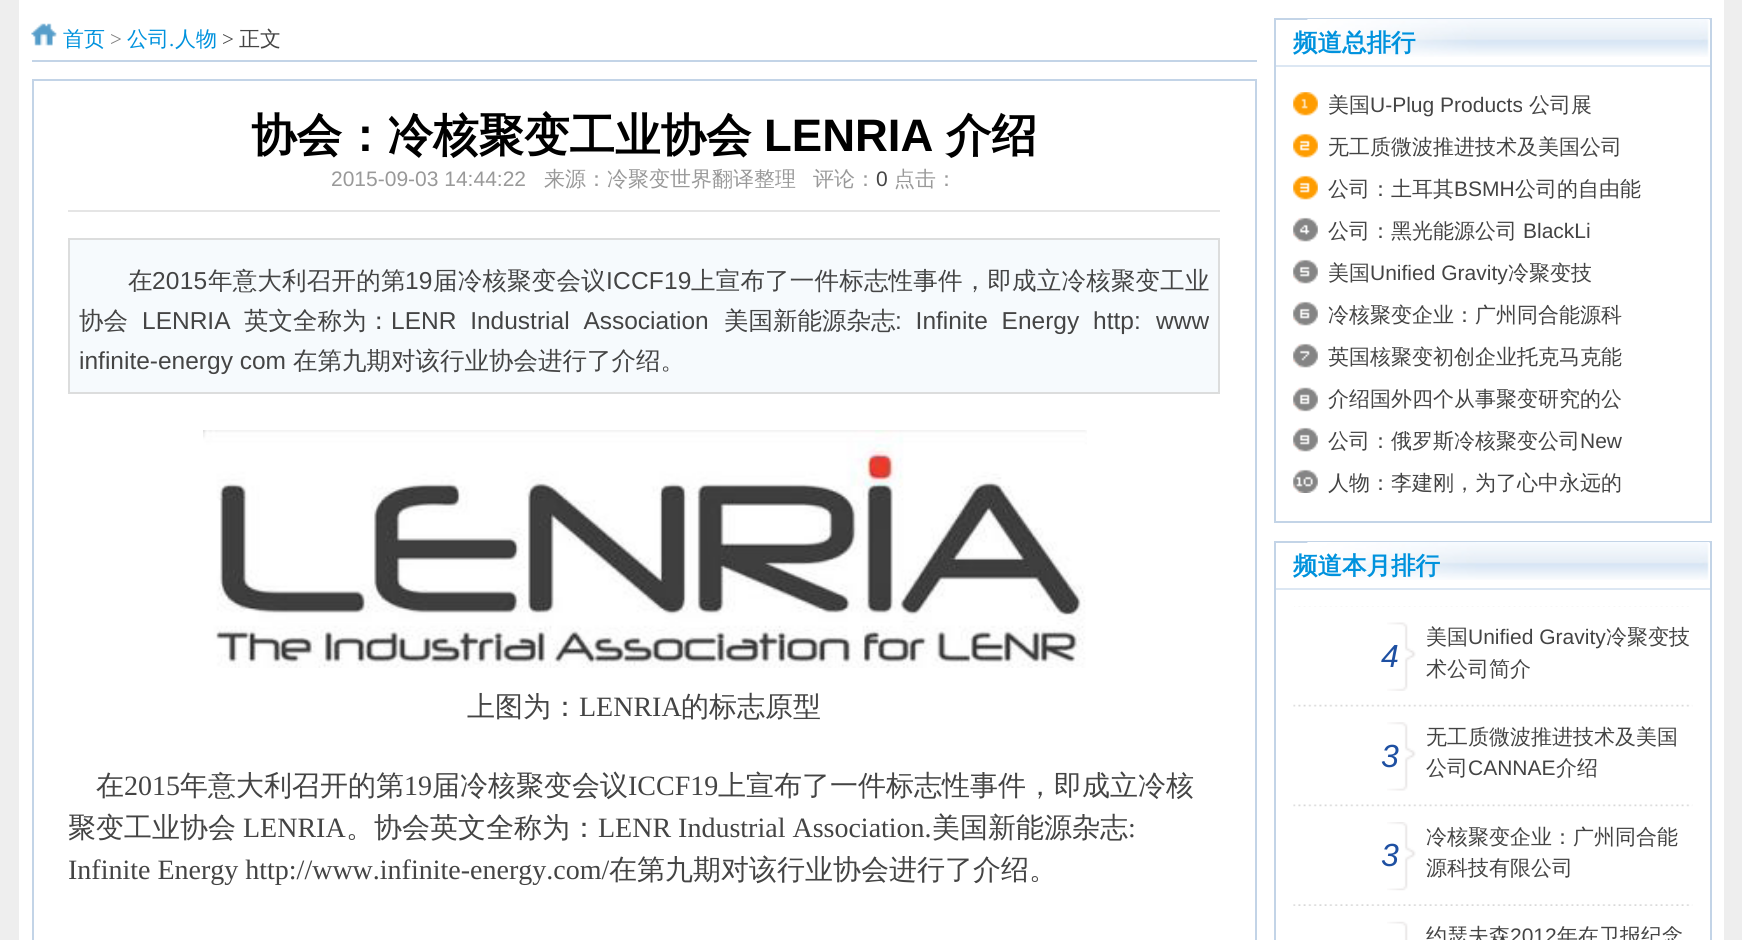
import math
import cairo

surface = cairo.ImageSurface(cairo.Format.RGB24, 1742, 940)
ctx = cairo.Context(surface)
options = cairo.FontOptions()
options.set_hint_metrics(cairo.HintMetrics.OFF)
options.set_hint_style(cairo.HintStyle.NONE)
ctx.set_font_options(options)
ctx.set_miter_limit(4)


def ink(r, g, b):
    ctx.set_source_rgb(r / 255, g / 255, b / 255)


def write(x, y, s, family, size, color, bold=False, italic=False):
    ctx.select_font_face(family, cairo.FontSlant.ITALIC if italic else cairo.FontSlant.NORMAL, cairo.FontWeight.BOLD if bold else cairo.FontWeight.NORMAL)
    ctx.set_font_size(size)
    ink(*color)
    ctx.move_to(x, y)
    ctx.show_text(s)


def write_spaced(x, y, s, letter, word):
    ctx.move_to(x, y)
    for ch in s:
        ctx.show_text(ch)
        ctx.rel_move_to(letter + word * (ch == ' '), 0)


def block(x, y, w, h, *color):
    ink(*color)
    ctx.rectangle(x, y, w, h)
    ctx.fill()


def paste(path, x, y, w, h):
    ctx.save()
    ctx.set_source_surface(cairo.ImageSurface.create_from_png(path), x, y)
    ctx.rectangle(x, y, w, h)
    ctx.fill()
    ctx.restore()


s1 = dict(family="WenQuanYi Zen Hei Medium", size=21, color=(0, 146, 221))
s2 = dict(family="Liberation Serif", size=21, color=(126, 126, 126))
s3 = dict(family="Liberation Serif", size=21, color=(0, 146, 221))
s4 = dict(family="Liberation Serif", size=21, color=(68, 68, 68))
s5 = dict(family="WenQuanYi Zen Hei Medium", size=21, color=(68, 68, 68))
s6 = dict(family="WenQuanYi Zen Hei", size=45.5, color=(0, 0, 0), bold=True)
s7 = dict(family="Liberation Sans", size=45.5, color=(0, 0, 0), bold=True)
s8 = dict(family="Liberation Sans", size=21, color=(153, 153, 153))
s9 = dict(family="WenQuanYi Zen Hei Medium", size=21, color=(153, 153, 153))
s10 = dict(family="Liberation Sans", size=21, color=(68, 68, 68))
s11 = dict(family="WenQuanYi Zen Hei Medium", size=24.5, color=(68, 68, 68))
s12 = dict(family="Liberation Sans", size=24.5, color=(68, 68, 68))
s13 = dict(family="WenQuanYi Zen Hei Medium", size=28, color=(68, 68, 68))
s14 = dict(family="Liberation Serif", size=28, color=(68, 68, 68))
s15 = dict(family="WenQuanYi Zen Hei", size=24.5, color=(0, 146, 221), bold=True)
s16 = dict(family="Liberation Sans", size=32, color=(30, 80, 162), italic=True)

ink(238, 238, 238)
ctx.paint()
block(19, 0, 1705, 940, 255, 255, 255)
paste("pic1.png", 31, 23, 26, 23)
block(32, 60, 1225, 2, 195, 212, 231)
write(63, 46, "首页", **s1)
write(110, 46, ">", **s2)
write(127, 46, "公司", **s1)
write(169, 46, ".", **s3)
write(175, 46, "人物", **s1)
write(222, 46, ">", **s4)
write(239, 46, "正文", **s5)
ctx.rectangle(33, 80, 1223, 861)
ink(195, 212, 231)
ctx.stroke()
block(68, 210, 1152, 2, 229, 229, 229)
write(251, 151, "协会：冷核聚变工业协会", **s6)
write(764, 151, "LENRIA", **s7)
write(946, 151, "介绍", **s6)
write(331, 186, "2015-09-03 14:44:22", **s8)
write(544, 186, "来源：冷聚变世界翻译整理", **s9)
write(813, 186, "评论：", **s9)
write(876, 186, "0", **s10)
write(894, 186, "点击：", **s9)
ink(246, 250, 253)
ctx.rectangle(69, 239, 1150, 154)
ctx.fill_preserve()
ink(220, 221, 221)
ctx.stroke()
ctx.set_font_size(24.5)
ink(68, 68, 68)
write_spaced(128, 289, "在", 0.2, 0)
ctx.select_font_face("Liberation Sans")
write_spaced(152, 289, "2015", 0.2, 0)
ctx.select_font_face("WenQuanYi Zen Hei Medium")
write_spaced(208, 289, "年意大利召开的第", 0.2, 0)
ctx.select_font_face("Liberation Sans")
write_spaced(405, 289, "19", 0.2, 0)
ctx.select_font_face("WenQuanYi Zen Hei Medium")
write_spaced(433, 289, "届冷核聚变会议", 0.2, 0)
ctx.select_font_face("Liberation Sans")
write_spaced(606, 289, "ICCF19", 0.2, 0)
ctx.select_font_face("WenQuanYi Zen Hei Medium")
write_spaced(691, 289, "上宣布了一件标志性事件，即成立冷核聚变工业", 0.2, 0)
write(79, 329, "协会", **s11)
write(142, 329, "LENRIA", **s12)
write(244, 329, "英文全称为：", **s11)
ctx.select_font_face("Liberation Sans")
write_spaced(391, 329, "LENR Industrial Association", 0, 7)
write(724, 329, "美国新能源杂志", **s11)
ctx.select_font_face("Liberation Sans")
write_spaced(895, 329, ": Infinite Energy http:", 0, 7)
write(1156, 329, "www", **s12)
write(79, 369, "infinite-energy com", **s12)
write(293, 369, "在第九期对该行业协会进行了介绍。", **s11)
paste("pic2.png", 203, 430, 884, 238)
write(467, 716, "上图为：", **s13)
write(579, 716, "LENRIA", **s14)
write(681, 716, "的标志原型", **s13)
write(96, 795, "在", **s13)
write(124, 795, "2015", **s14)
write(180, 795, "年意大利召开的第", **s13)
write(404, 795, "19", **s14)
write(432, 795, "届冷核聚变会议", **s13)
write(628, 795, "ICCF19", **s14)
write(718, 795, "上宣布了一件标志性事件，即成立冷核", **s13)
write(68, 837, "聚变工业协会", **s13)
write(243, 837, "LENRIA", **s14)
write(346, 837, "。协会英文全称为：", **s13)
write(598, 837, "LENR Industrial Association.", **s14)
write(932, 837, "美国新能源杂志", **s13)
write(1128, 837, ":", **s14)
write(68, 879, "Infinite Energy http://www.infinite-energy.com/", **s14)
write(609, 879, "在第九期对该行业协会进行了介绍。", **s13)
ctx.rectangle(1275, 19, 436, 503)
ink(195, 212, 231)
ctx.stroke()
paste("pic3.png", 1307, 19, 403, 38)
block(1276, 65, 434, 2, 220, 231, 243)
write(1293, 51, "频道总排行", **s15)
paste("pic4.png", 1293, 92, 25, 401)
write(1328, 112, "美国", **s5)
write(1370, 112, "U-Plug Products", **s10)
write(1529, 112, "公司展", **s5)
write(1328, 154, "无工质微波推进技术及美国公司", **s5)
write(1328, 196, "公司：土耳其", **s5)
write(1454, 196, "BSMH", **s10)
write(1515, 196, "公司的自由能", **s5)
write(1328, 238, "公司：黑光能源公司", **s5)
write(1523, 238, "BlackLi", **s10)
write(1328, 280, "美国", **s5)
write(1370, 280, "Unified Gravity", **s10)
write(1508, 280, "冷聚变技", **s5)
write(1328, 322, "冷核聚变企业：广州同合能源科", **s5)
write(1328, 364, "英国核聚变初创企业托克马克能", **s5)
write(1328, 406, "介绍国外四个从事聚变研究的公", **s5)
write(1328, 448, "公司：俄罗斯冷核聚变公司", **s5)
write(1580, 448, "New", **s10)
write(1328, 490, "人物：李建刚，为了心中永远的", **s5)
ctx.rectangle(1275, 542, 436, 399)
ink(195, 212, 231)
ctx.stroke()
paste("pic5.png", 1307, 542, 403, 38)
block(1276, 588, 434, 2, 220, 231, 243)
write(1293, 574, "频道本月排行", **s15)
paste("pic6.png", 1294, 606, 395, 1)
paste("pic7.png", 1387, 622, 29, 69)
write(1381, 667, "4", **s16)
write(1426, 644, "美国", **s5)
write(1468, 644, "Unified Gravity", **s10)
write(1606, 644, "冷聚变技", **s5)
write(1426, 676, "术公司简介", **s5)
paste("pic8.png", 1293, 704, 400, 3)
paste("pic9.png", 1387, 722, 29, 69)
write(1381, 767, "3", **s16)
write(1426, 744, "无工质微波推进技术及美国", **s5)
write(1426, 775, "公司", **s5)
write(1468, 775, "CANNAE", **s10)
write(1556, 775, "介绍", **s5)
paste("pic10.png", 1293, 804, 400, 3)
paste("pic11.png", 1387, 822, 29, 69)
write(1381, 866, "3", **s16)
write(1426, 844, "冷核聚变企业：广州同合能", **s5)
write(1426, 875, "源科技有限公司", **s5)
paste("pic12.png", 1293, 904, 400, 2)
paste("pic13.png", 1387, 921, 21, 19)
write(1426, 943, "约瑟夫森", **s5)
write(1510, 943, "2012", **s10)
write(1557, 943, "年在卫报纪念", **s5)
surface.write_to_png("screenshot.png")
